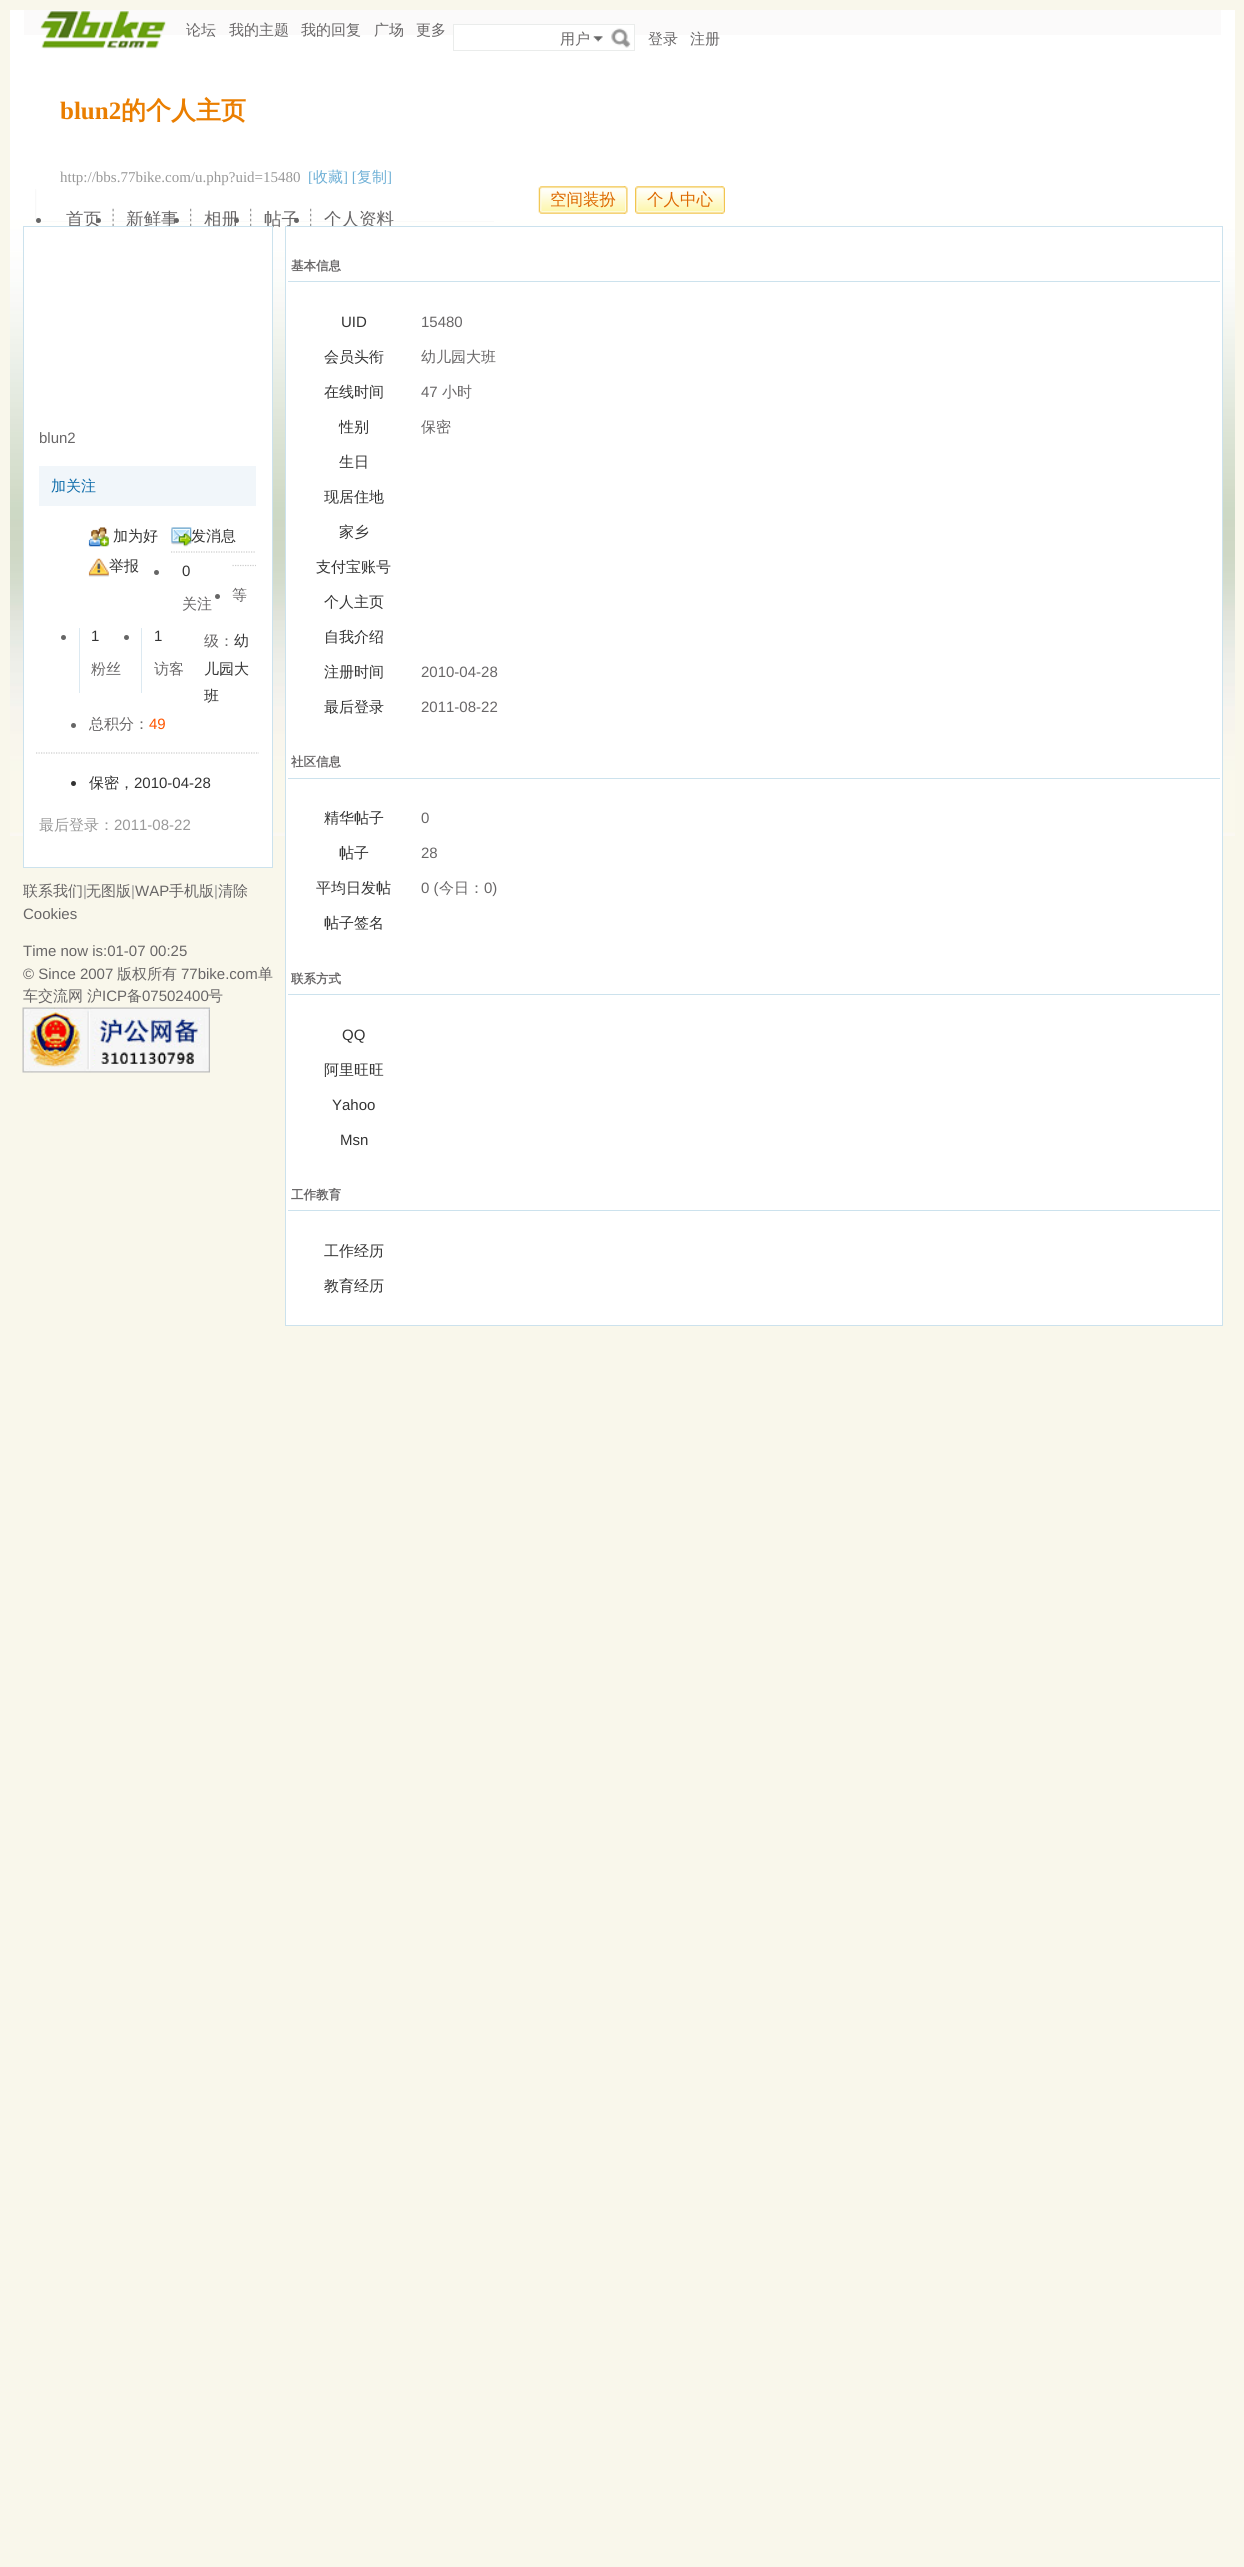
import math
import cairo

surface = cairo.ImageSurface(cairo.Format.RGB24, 1244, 2567)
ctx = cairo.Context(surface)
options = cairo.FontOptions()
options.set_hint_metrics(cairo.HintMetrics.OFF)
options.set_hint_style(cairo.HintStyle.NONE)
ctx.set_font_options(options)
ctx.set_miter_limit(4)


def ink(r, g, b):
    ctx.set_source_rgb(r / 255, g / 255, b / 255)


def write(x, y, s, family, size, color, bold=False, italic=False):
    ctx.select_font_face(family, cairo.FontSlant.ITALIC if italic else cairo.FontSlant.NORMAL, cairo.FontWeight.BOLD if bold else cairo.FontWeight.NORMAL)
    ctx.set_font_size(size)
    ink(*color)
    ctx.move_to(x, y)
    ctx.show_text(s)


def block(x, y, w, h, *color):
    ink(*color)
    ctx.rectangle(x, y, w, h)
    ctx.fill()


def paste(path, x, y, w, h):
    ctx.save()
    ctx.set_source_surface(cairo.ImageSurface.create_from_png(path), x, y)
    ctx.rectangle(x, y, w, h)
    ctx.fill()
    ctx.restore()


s1 = dict(family="WenQuanYi Zen Hei Medium", size=15, color=(104, 102, 103))
s2 = dict(family="Liberation Serif", size=25, color=(234, 126, 0), bold=True)
s3 = dict(family="WenQuanYi Zen Hei", size=25, color=(234, 126, 0), bold=True)
s4 = dict(family="Liberation Serif", size=15, color=(153, 153, 153))
s5 = dict(family="Liberation Serif", size=15, color=(111, 176, 214))
s6 = dict(family="WenQuanYi Zen Hei Medium", size=15, color=(111, 176, 214))
s7 = dict(family="WenQuanYi Zen Hei Medium", size=16.5, color=(221, 104, 0))
s8 = dict(family="WenQuanYi Zen Hei Medium", size=17.5, color=(104, 102, 103))
s9 = dict(family="Liberation Sans", size=15, color=(104, 102, 103))
s10 = dict(family="WenQuanYi Zen Hei Medium", size=15, color=(14, 108, 170))
s11 = dict(family="WenQuanYi Zen Hei Medium", size=15, color=(51, 51, 51))
s12 = dict(family="Liberation Sans", size=15, color=(51, 51, 51))
s13 = dict(family="Liberation Sans", size=15, color=(255, 85, 0))
s14 = dict(family="WenQuanYi Zen Hei Medium", size=15, color=(153, 153, 153))
s15 = dict(family="Liberation Sans", size=15, color=(153, 153, 153))
s16 = dict(family="WenQuanYi Zen Hei", size=12.5, color=(104, 102, 103), bold=True)

ink(249, 247, 235)
ctx.paint()
paste("pic1.png", 10, 10, 1225, 826)
block(24, 10, 1197, 25, 251, 250, 250)
paste("pic2.png", 40, 11, 126, 38)
write(186, 35, "论坛", **s1)
write(229, 35, "我的主题", **s1)
write(301, 35, "我的回复", **s1)
write(374, 35, "广场", **s1)
write(416, 35, "更多", **s1)
block(454, 25, 180, 10, 255, 255, 255)
ctx.rectangle(453.5, 24.5, 181, 26)
ink(234, 236, 235)
ctx.set_line_width(1)
ctx.stroke()
write(560, 44, "用户", **s1)
paste("pic3.png", 593, 36, 10, 6)
paste("pic4.png", 611, 28, 20, 20)
write(648, 44, "登录", **s1)
write(690, 44, "注册", **s1)
write(60, 119, "blun2", **s2)
write(121, 119, "的个人主页", **s3)
write(60, 182, "http://bbs.77bike.com/u.php?uid=15480", **s4)
write(308, 182, "[", **s5)
write(313, 182, "收藏", **s6)
write(343, 182, "] [", **s5)
write(357, 182, "复制", **s6)
write(387, 182, "]", **s5)
paste("pic5.png", 623, 186, 5, 28)
paste("pic6.png", 538, 186, 87, 28)
write(550, 205, "空间装扮", **s7)
paste("pic7.png", 721, 186, 4, 28)
paste("pic8.png", 635, 186, 88, 28)
write(647, 205, "个人中心", **s7)
paste("pic9.png", 35, 189, 459, 33)
ink(102, 102, 102)
ctx.arc(38.5, 220.5, 2.5, 0, 2 * math.pi)
ctx.fill()
paste("pic10.png", 112, 208, 2, 18)
ctx.arc(98.5, 220.5, 2.5, 0, 2 * math.pi)
ctx.fill()
write(66, 225, "首页", **s8)
paste("pic11.png", 190, 208, 2, 18)
ink(102, 102, 102)
ctx.arc(176.5, 220.5, 2.5, 0, 2 * math.pi)
ctx.fill()
write(126, 225, "新鲜事", **s8)
paste("pic11.png", 250, 208, 2, 18)
ink(102, 102, 102)
ctx.arc(236.5, 220.5, 2.5, 0, 2 * math.pi)
ctx.fill()
write(204, 225, "相册", **s8)
paste("pic11.png", 310, 208, 2, 18)
ink(102, 102, 102)
ctx.arc(296.5, 220.5, 2.5, 0, 2 * math.pi)
ctx.fill()
write(264, 225, "帖子", **s8)
write(324, 225, "个人资料", **s8)
ink(255, 255, 255)
ctx.rectangle(23.5, 226.5, 249, 641)
ctx.fill_preserve()
ink(204, 226, 237)
ctx.stroke()
write(39, 443, "blun2", **s9)
block(39, 466, 217, 40, 241, 246, 250)
write(51, 491, "加关注", **s10)
paste("pic12.png", 88, 527, 21, 20)
write(113, 541, "加为好", **s11)
paste("pic13.png", 171, 527, 21, 20)
write(191, 541, "发消息", **s11)
paste("pic14.png", 88, 558, 21, 19)
write(109, 571, "举报", **s11)
ctx.new_path()
ctx.move_to(171, 552)
ctx.line_to(256, 552)
ink(204, 204, 204)
ctx.set_line_width(1.2)
ctx.set_dash([1.25, 1.25])
ctx.stroke()
ink(102, 102, 102)
ctx.arc(156.5, 572.5, 2.5, 0, 2 * math.pi)
ctx.fill()
write(182, 576, "0", **s12)
write(182, 609, "关注", **s1)
block(79, 628, 1, 65, 220, 233, 241)
ink(102, 102, 102)
ctx.new_path()
ctx.arc(63.5, 637.5, 2.5, 0, 2 * math.pi)
ctx.fill()
write(91, 641, "1", **s12)
write(91, 674, "粉丝", **s1)
block(141, 628, 1, 65, 220, 233, 241)
ink(102, 102, 102)
ctx.new_path()
ctx.arc(126.5, 637.5, 2.5, 0, 2 * math.pi)
ctx.fill()
write(154, 641, "1", **s12)
write(154, 674, "访客", **s1)
ctx.new_path()
ctx.move_to(232.5, 565.5)
ctx.line_to(256, 565.5)
ink(204, 204, 204)
ctx.stroke()
ink(102, 102, 102)
ctx.arc(217.5, 596.5, 2.5, 0, 2 * math.pi)
ctx.fill()
write(232, 600, "等", **s1)
write(204, 646, "级：", **s1)
write(234, 646, "幼", **s11)
write(204, 674, "儿园大", **s11)
write(204, 701, "班", **s11)
ink(102, 102, 102)
ctx.new_path()
ctx.arc(73.5, 725.5, 2.5, 0, 2 * math.pi)
ctx.fill()
write(89, 729, "总积分：", **s1)
write(149, 729, "49", **s13)
ctx.new_path()
ctx.move_to(36, 753)
ctx.line_to(259, 753)
ink(204, 204, 204)
ctx.stroke()
ink(51, 51, 51)
ctx.arc(73.5, 783.5, 2.5, 0, 2 * math.pi)
ctx.fill()
write(89, 788, "保密，", **s11)
write(134, 788, "2010-04-28", **s12)
write(39, 830, "最后登录：", **s14)
write(114, 830, "2011-08-22", **s15)
ink(255, 255, 255)
ctx.rectangle(285.5, 226.5, 937, 1099)
ctx.fill_preserve()
ink(204, 226, 237)
ctx.set_line_width(1)
ctx.set_dash([])
ctx.stroke()
block(288, 281, 932, 1, 204, 226, 237)
write(291, 270, "基本信息", **s16)
write(341, 327, "UID", **s12)
write(421, 327, "15480", **s9)
write(324, 362, "会员头衔", **s11)
write(421, 362, "幼儿园大班", **s1)
write(324, 397, "在线时间", **s11)
write(421, 397, "47", **s9)
write(442, 397, "小时", **s1)
write(339, 432, "性别", **s11)
write(421, 432, "保密", **s1)
write(339, 467, "生日", **s11)
write(324, 502, "现居住地", **s11)
write(339, 537, "家乡", **s11)
write(316, 572, "支付宝账号", **s11)
write(324, 607, "个人主页", **s11)
write(324, 642, "自我介绍", **s11)
write(324, 677, "注册时间", **s11)
write(421, 677, "2010-04-28", **s9)
write(324, 712, "最后登录", **s11)
write(421, 712, "2011-08-22", **s9)
block(288, 778, 932, 1, 204, 226, 237)
write(291, 766, "社区信息", **s16)
write(324, 823, "精华帖子", **s11)
write(421, 823, "0", **s9)
write(339, 858, "帖子", **s11)
write(421, 858, "28", **s9)
write(316, 893, "平均日发帖", **s11)
write(421, 893, "0 (", **s9)
write(439, 893, "今日：", **s1)
write(484, 893, "0)", **s9)
write(324, 928, "帖子签名", **s11)
block(288, 994, 932, 1, 204, 226, 237)
write(291, 983, "联系方式", **s16)
write(342, 1040, "QQ", **s12)
write(324, 1075, "阿里旺旺", **s11)
write(332, 1110, "Yahoo", **s12)
write(340, 1145, "Msn", **s12)
block(288, 1210, 932, 1, 204, 226, 237)
write(291, 1199, "工作教育", **s16)
write(324, 1256, "工作经历", **s11)
write(324, 1291, "教育经历", **s11)
write(23, 896, "联系我们", **s1)
write(83, 896, "|", **s15)
write(86, 896, "无图版", **s1)
write(131, 896, "|", **s15)
write(135, 896, "WAP", **s9)
write(169, 896, "手机版", **s1)
write(214, 896, "|", **s15)
write(218, 896, "清除", **s1)
write(23, 919, "Cookies", **s9)
write(23, 956, "Time now is:01-07 00:25", **s9)
write(23, 979, "© Since 2007", **s9)
write(117, 979, "版权所有", **s1)
write(181, 979, "77bike.com", **s9)
write(258, 979, "单", **s1)
write(23, 1001, "车交流网", **s1)
write(87, 1001, "沪", **s1)
write(102, 1001, "ICP", **s9)
write(127, 1001, "备", **s1)
write(142, 1001, "07502400", **s9)
write(208, 1001, "号", **s1)
paste("pic15.png", 22, 1007, 188, 66)
surface.write_to_png("screenshot.png")
